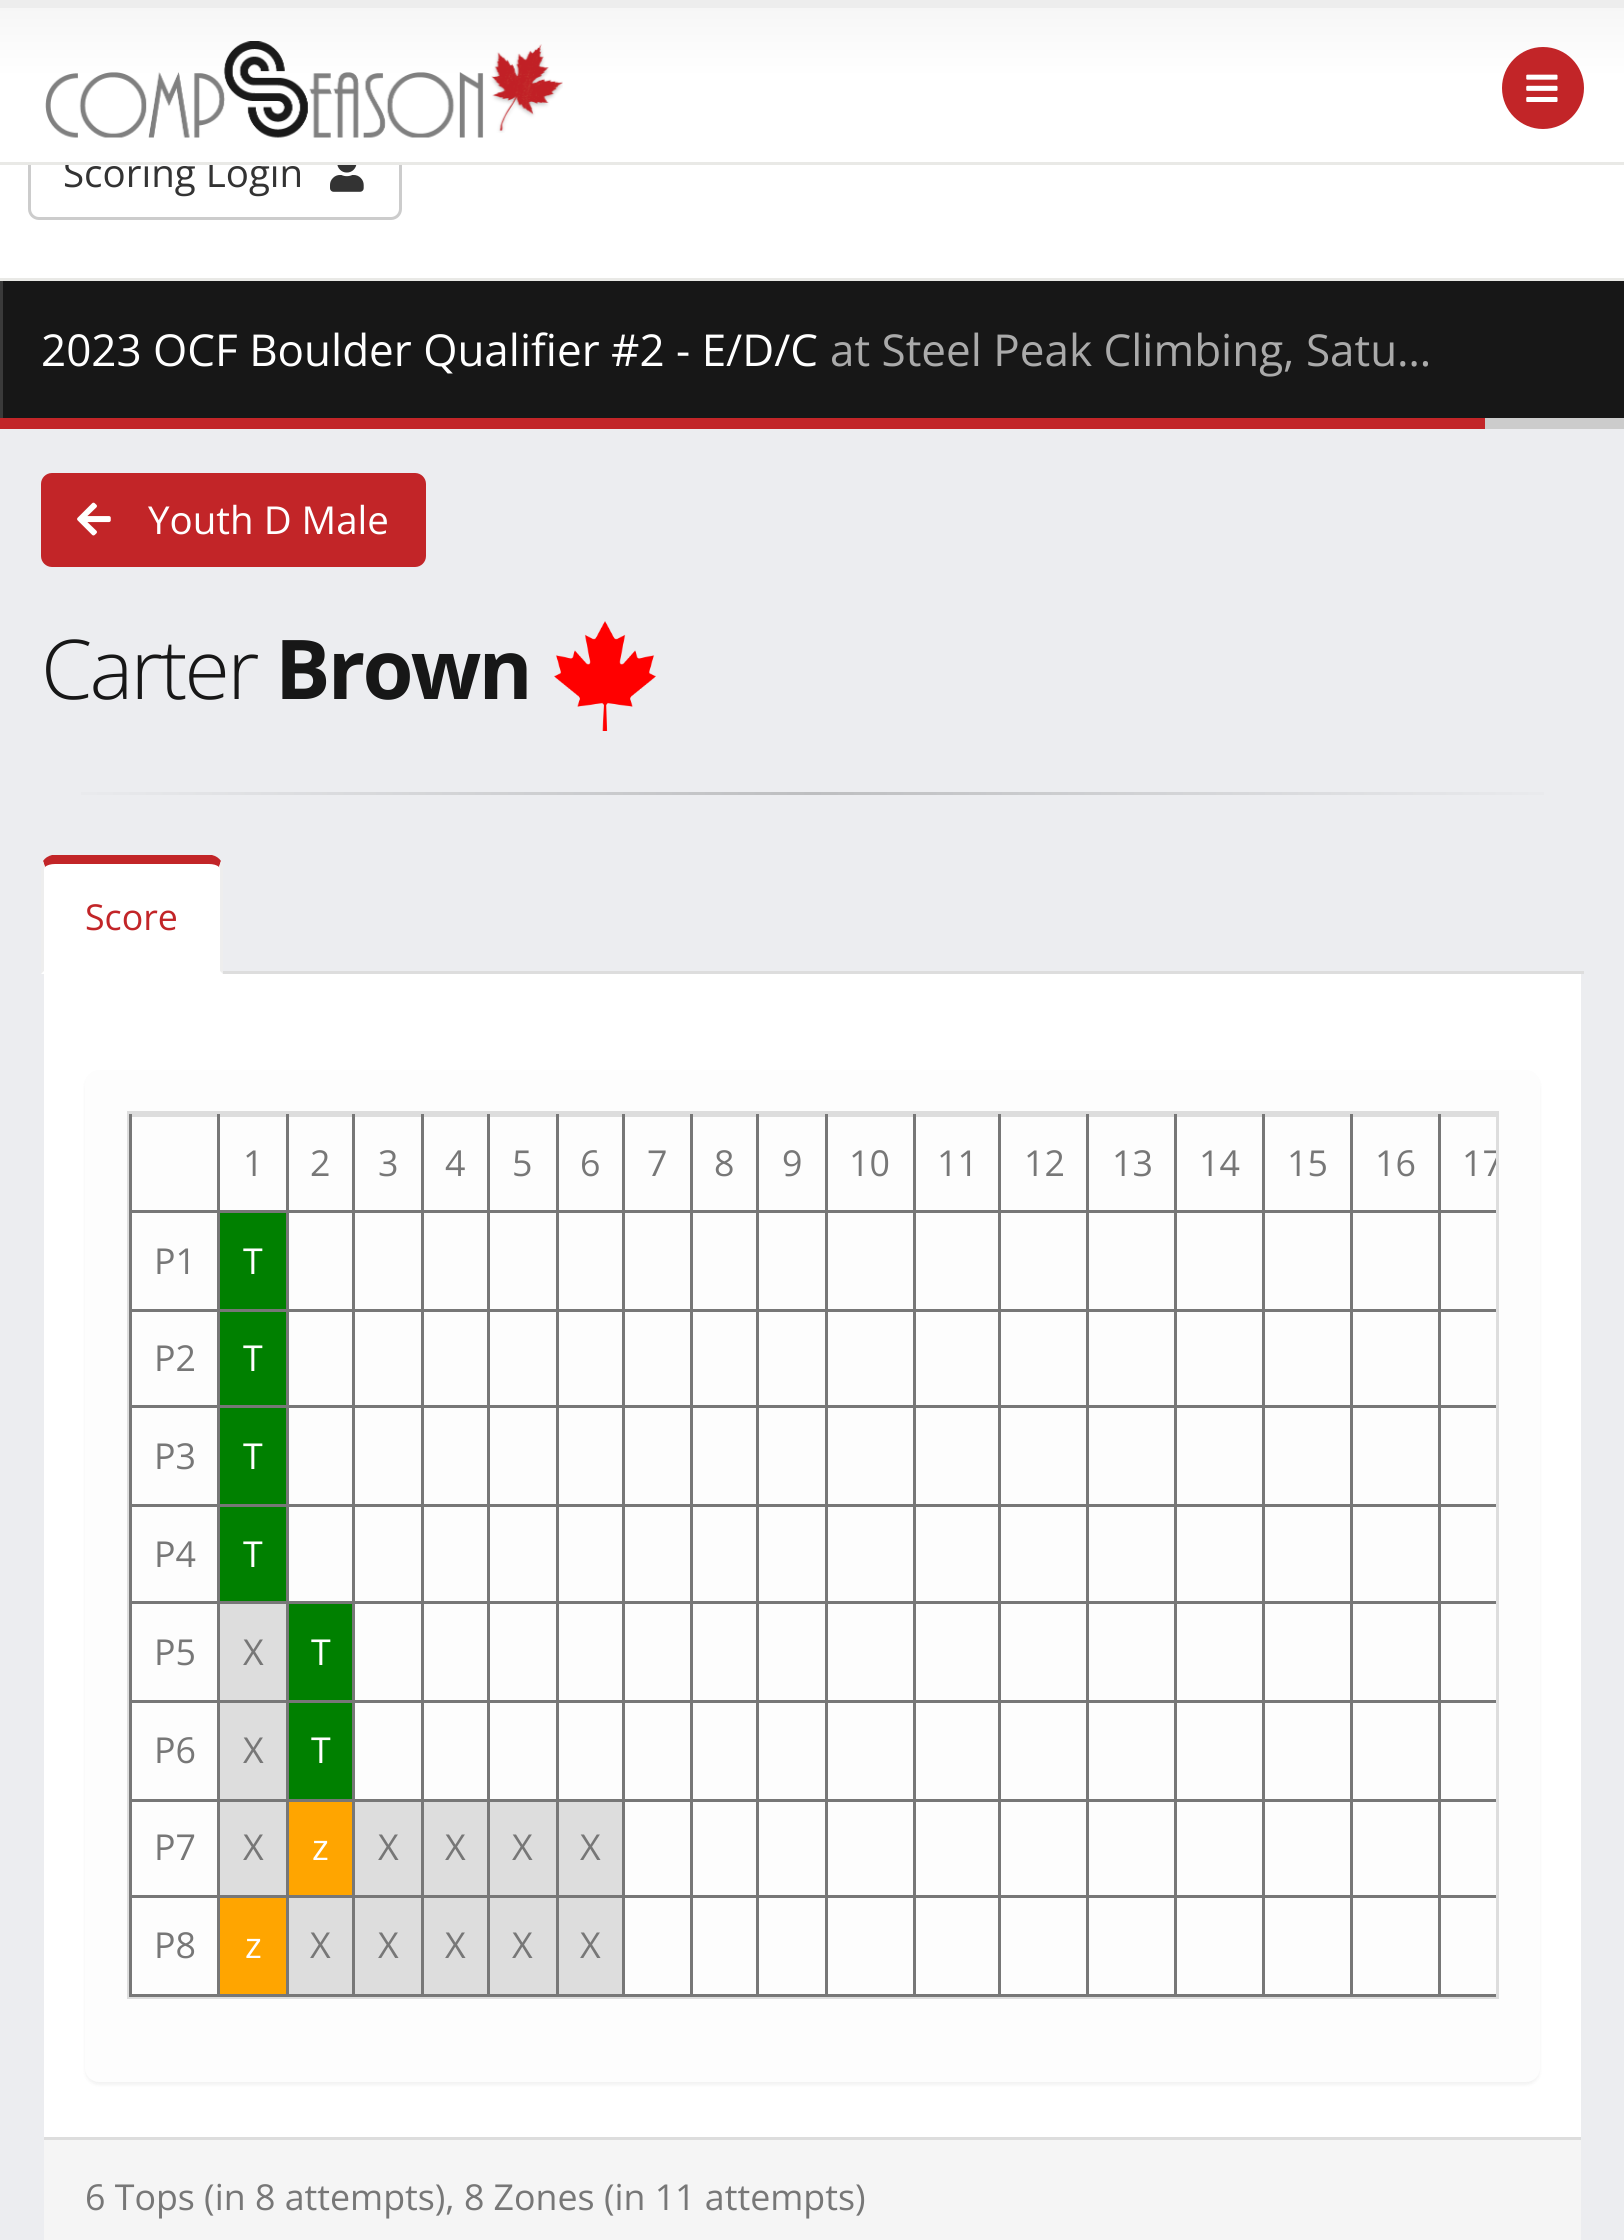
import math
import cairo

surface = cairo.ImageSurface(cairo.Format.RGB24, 1624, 2240)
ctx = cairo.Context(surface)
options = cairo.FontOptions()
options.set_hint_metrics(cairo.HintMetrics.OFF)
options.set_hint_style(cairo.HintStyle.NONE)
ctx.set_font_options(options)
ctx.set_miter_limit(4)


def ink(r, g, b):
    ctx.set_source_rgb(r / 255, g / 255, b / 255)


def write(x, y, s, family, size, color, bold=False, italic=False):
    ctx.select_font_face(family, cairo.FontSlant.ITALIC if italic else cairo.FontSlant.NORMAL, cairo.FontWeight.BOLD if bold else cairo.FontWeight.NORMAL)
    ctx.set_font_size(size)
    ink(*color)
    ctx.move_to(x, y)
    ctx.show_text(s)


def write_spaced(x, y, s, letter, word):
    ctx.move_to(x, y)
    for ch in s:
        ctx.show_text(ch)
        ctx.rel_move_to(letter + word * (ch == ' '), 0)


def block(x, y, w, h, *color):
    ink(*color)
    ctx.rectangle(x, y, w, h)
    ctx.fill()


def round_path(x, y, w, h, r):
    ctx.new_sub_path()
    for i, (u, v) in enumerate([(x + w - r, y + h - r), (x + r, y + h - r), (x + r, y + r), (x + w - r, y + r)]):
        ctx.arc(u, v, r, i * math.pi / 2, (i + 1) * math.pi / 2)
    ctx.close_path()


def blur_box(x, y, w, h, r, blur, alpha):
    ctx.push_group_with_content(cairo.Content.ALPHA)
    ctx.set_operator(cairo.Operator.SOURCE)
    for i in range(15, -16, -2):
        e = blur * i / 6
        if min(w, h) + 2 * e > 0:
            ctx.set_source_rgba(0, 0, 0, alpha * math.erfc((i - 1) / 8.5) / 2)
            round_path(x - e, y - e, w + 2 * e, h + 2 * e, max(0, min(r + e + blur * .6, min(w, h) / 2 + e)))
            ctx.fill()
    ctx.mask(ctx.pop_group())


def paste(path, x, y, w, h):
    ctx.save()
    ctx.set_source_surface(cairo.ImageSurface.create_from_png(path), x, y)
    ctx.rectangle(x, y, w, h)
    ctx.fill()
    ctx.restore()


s1 = dict(family="Open Sans", size=38.5, color=(51, 51, 51))
s2 = dict(family="Open Sans", size=44, color=(255, 255, 255))
s3 = dict(family="Open Sans", size=44, color=(170, 170, 170))
s4 = dict(family="Open Sans", size=38.5, color=(255, 255, 255))
s5 = dict(family="Open Sans", size=35.75, color=(194, 37, 40))
s6 = dict(family="Open Sans", size=35.75, color=(119, 119, 119))
s7 = dict(family="Open Sans", size=35.75, color=(255, 255, 255))

ink(236, 237, 240)
ctx.paint()
block(0, 165, 1624, 113, 255, 255, 255)
block(0, 278, 1624, 3, 233, 233, 230)
round_path(29.5, 128.5, 371, 90, 9.5)
ink(204, 204, 204)
ctx.set_line_width(3)
ctx.stroke()
write(63, 187, "Scoring Login", **s1)
gradient = cairo.LinearGradient(813, 8, 813, 162)
gradient.add_color_stop_rgba(0, 0.965, 0.965, 0.965, 1)
gradient.add_color_stop_rgba(0.45, 1, 1, 1, 1)
ctx.set_source(gradient)
ctx.rectangle(0, 8, 1624, 154)
ctx.fill()
block(0, 0, 1624, 8, 237, 237, 237)
block(0, 162, 1624, 3, 233, 233, 230)
paste("pic1.png", 45, 41, 518, 97)
ink(194, 37, 40)
ctx.arc(1543, 88, 41, 0, 2 * math.pi)
ctx.fill()
paste("pic2.png", 1526, 74, 32, 28)
paste("pic3.png", 330, 165, 34, 27)
ink(204, 204, 204)
ctx.new_path()
ctx.move_to(0, 418)
ctx.line_to(0, 429)
ctx.line_to(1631, 429)
ctx.line_to(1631, 286)
ctx.line_to(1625, 286)
ctx.line_to(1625, 418)
ctx.close_path()
ctx.fill()
block(3, 281, 1621, 137, 23, 23, 23)
block(0, 281, 3, 137, 58, 58, 58)
block(0, 418, 1485, 11, 194, 37, 40)
write(41, 366, "2023 OCF Boulder Qualifier #2 - E/D/C", **s2)
write(830, 366, "at Steel Peak Climbing, Satu…", **s3)
ink(194, 37, 40)
round_path(42.5, 474.5, 382, 91, 9.5)
ctx.fill_preserve()
ctx.stroke()
paste("pic4.png", 77, 502, 34, 34)
write(148, 534, "Youth D Male", **s4)
ctx.select_font_face("Open Sans Light")
ctx.set_font_size(82.5)
ink(23, 23, 23)
write_spaced(41, 699, "Carter", -2.75, 0)
ctx.select_font_face("Open Sans", cairo.FontSlant.NORMAL, cairo.FontWeight.BOLD)
write_spaced(275, 699, "Brown", -2.75, 0)
paste("pic5.png", 554, 621, 102, 110)
gradient = cairo.LinearGradient(41, 793, 1584, 793)
gradient.add_color_stop_rgba(0, 0.925, 0.929, 0.941, 1)
gradient.add_color_stop_rgba(0.5, 0.741, 0.745, 0.753, 1)
gradient.add_color_stop_rgba(1, 0.925, 0.929, 0.941, 1)
ctx.set_source(gradient)
ctx.rectangle(81, 792, 1463, 3)
ctx.fill()
block(223, 971, 1361, 3, 221, 221, 221)
ink(255, 255, 255)
ctx.new_path()
ctx.move_to(55, 855)
ctx.line_to(209, 855)
ctx.curve_to(216.5, 855, 223, 861.5, 223, 869)
ctx.line_to(223, 974)
ctx.line_to(41, 974)
ctx.line_to(41, 869)
ctx.curve_to(41, 861.5, 47.5, 855, 55, 855)
ctx.close_path()
ctx.fill()
ink(194, 37, 40)
ctx.new_path()
ctx.move_to(55, 864)
ctx.curve_to(51, 864, 47, 865, 45, 867)
ctx.line_to(43, 861)
ctx.curve_to(45, 858, 48, 856, 52, 855)
ctx.line_to(212, 855)
ctx.curve_to(216, 856, 219, 858, 221, 861)
ctx.line_to(219, 867)
ctx.curve_to(217, 865, 213, 864, 209, 864)
ctx.close_path()
ctx.fill()
ink(238, 238, 238)
ctx.new_path()
ctx.move_to(221, 861)
ctx.curve_to(222, 863, 222, 864, 223, 866)
ctx.line_to(223, 974)
ctx.line_to(220, 971)
ctx.line_to(220, 869)
ctx.line_to(219, 867)
ctx.close_path()
ctx.fill()
ctx.new_path()
ctx.move_to(41, 974)
ctx.line_to(41, 866)
ctx.curve_to(42, 864, 42, 863, 43, 861)
ctx.line_to(45, 867)
ctx.line_to(44, 869)
ctx.line_to(44, 971)
ctx.close_path()
ctx.fill()
write(85, 930, "Score", **s5)
block(44, 974, 1537, 1163, 255, 255, 255)
ink(0, 0, 0)
blur_box(85, 1073, 1455, 1012, 14, 1.5, 0.05)
ink(253, 253, 253)
round_path(85, 1070, 1455, 1012, 14)
ctx.fill()
ctx.rectangle(128.5, 1112.5, 1369, 885)
ink(221, 221, 221)
ctx.stroke()
block(129, 1114, 1367, 3, 221, 221, 221)
block(1438, 1994, 58, 3, 119, 119, 119)
block(1438, 1895, 3, 102, 119, 119, 119)
block(1438, 1895, 58, 3, 119, 119, 119)
block(1438, 1799, 3, 99, 119, 119, 119)
block(1438, 1799, 58, 3, 119, 119, 119)
block(1438, 1700, 3, 101, 119, 119, 119)
block(1438, 1700, 58, 3, 119, 119, 119)
block(1438, 1601, 3, 101, 119, 119, 119)
block(1438, 1601, 58, 3, 119, 119, 119)
block(1438, 1504, 3, 99, 119, 119, 119)
block(1438, 1504, 58, 3, 119, 119, 119)
block(1438, 1405, 3, 102, 119, 119, 119)
block(1438, 1405, 58, 3, 119, 119, 119)
block(1438, 1309, 3, 99, 119, 119, 119)
block(1438, 1309, 58, 3, 119, 119, 119)
block(1438, 1210, 3, 102, 119, 119, 119)
block(1438, 1210, 58, 3, 119, 119, 119)
block(1438, 1114, 3, 99, 119, 119, 119)
block(1350, 1994, 91, 3, 119, 119, 119)
block(1350, 1895, 3, 102, 119, 119, 119)
block(1350, 1895, 91, 3, 119, 119, 119)
block(1350, 1799, 3, 99, 119, 119, 119)
block(1350, 1799, 91, 3, 119, 119, 119)
block(1350, 1700, 3, 101, 119, 119, 119)
block(1350, 1700, 91, 3, 119, 119, 119)
block(1350, 1601, 3, 101, 119, 119, 119)
block(1350, 1601, 91, 3, 119, 119, 119)
block(1350, 1504, 3, 99, 119, 119, 119)
block(1350, 1504, 91, 3, 119, 119, 119)
block(1350, 1405, 3, 102, 119, 119, 119)
block(1350, 1405, 91, 3, 119, 119, 119)
block(1350, 1309, 3, 99, 119, 119, 119)
block(1350, 1309, 91, 3, 119, 119, 119)
block(1350, 1210, 3, 102, 119, 119, 119)
block(1350, 1210, 91, 3, 119, 119, 119)
block(1350, 1114, 3, 99, 119, 119, 119)
block(1262, 1994, 91, 3, 119, 119, 119)
block(1262, 1895, 3, 102, 119, 119, 119)
block(1262, 1895, 91, 3, 119, 119, 119)
block(1262, 1799, 3, 99, 119, 119, 119)
block(1262, 1799, 91, 3, 119, 119, 119)
block(1262, 1700, 3, 101, 119, 119, 119)
block(1262, 1700, 91, 3, 119, 119, 119)
block(1262, 1601, 3, 101, 119, 119, 119)
block(1262, 1601, 91, 3, 119, 119, 119)
block(1262, 1504, 3, 99, 119, 119, 119)
block(1262, 1504, 91, 3, 119, 119, 119)
block(1262, 1405, 3, 102, 119, 119, 119)
block(1262, 1405, 91, 3, 119, 119, 119)
block(1262, 1309, 3, 99, 119, 119, 119)
block(1262, 1309, 91, 3, 119, 119, 119)
block(1262, 1210, 3, 102, 119, 119, 119)
block(1262, 1210, 91, 3, 119, 119, 119)
block(1262, 1114, 3, 99, 119, 119, 119)
block(1174, 1994, 91, 3, 119, 119, 119)
block(1174, 1895, 3, 102, 119, 119, 119)
block(1174, 1895, 91, 3, 119, 119, 119)
block(1174, 1799, 3, 99, 119, 119, 119)
block(1174, 1799, 91, 3, 119, 119, 119)
block(1174, 1700, 3, 101, 119, 119, 119)
block(1174, 1700, 91, 3, 119, 119, 119)
block(1174, 1601, 3, 101, 119, 119, 119)
block(1174, 1601, 91, 3, 119, 119, 119)
block(1174, 1504, 3, 99, 119, 119, 119)
block(1174, 1504, 91, 3, 119, 119, 119)
block(1174, 1405, 3, 102, 119, 119, 119)
block(1174, 1405, 91, 3, 119, 119, 119)
block(1174, 1309, 3, 99, 119, 119, 119)
block(1174, 1309, 91, 3, 119, 119, 119)
block(1174, 1210, 3, 102, 119, 119, 119)
block(1174, 1210, 91, 3, 119, 119, 119)
block(1174, 1114, 3, 99, 119, 119, 119)
block(1086, 1994, 91, 3, 119, 119, 119)
block(1086, 1895, 3, 102, 119, 119, 119)
block(1086, 1895, 91, 3, 119, 119, 119)
block(1086, 1799, 3, 99, 119, 119, 119)
block(1086, 1799, 91, 3, 119, 119, 119)
block(1086, 1700, 3, 101, 119, 119, 119)
block(1086, 1700, 91, 3, 119, 119, 119)
block(1086, 1601, 3, 101, 119, 119, 119)
block(1086, 1601, 91, 3, 119, 119, 119)
block(1086, 1504, 3, 99, 119, 119, 119)
block(1086, 1504, 91, 3, 119, 119, 119)
block(1086, 1405, 3, 102, 119, 119, 119)
block(1086, 1405, 91, 3, 119, 119, 119)
block(1086, 1309, 3, 99, 119, 119, 119)
block(1086, 1309, 91, 3, 119, 119, 119)
block(1086, 1210, 3, 102, 119, 119, 119)
block(1086, 1210, 91, 3, 119, 119, 119)
block(1086, 1114, 3, 99, 119, 119, 119)
block(998, 1994, 91, 3, 119, 119, 119)
block(998, 1895, 3, 102, 119, 119, 119)
block(998, 1895, 91, 3, 119, 119, 119)
block(998, 1799, 3, 99, 119, 119, 119)
block(998, 1799, 91, 3, 119, 119, 119)
block(998, 1700, 3, 101, 119, 119, 119)
block(998, 1700, 91, 3, 119, 119, 119)
block(998, 1601, 3, 101, 119, 119, 119)
block(998, 1601, 91, 3, 119, 119, 119)
block(998, 1504, 3, 99, 119, 119, 119)
block(998, 1504, 91, 3, 119, 119, 119)
block(998, 1405, 3, 102, 119, 119, 119)
block(998, 1405, 91, 3, 119, 119, 119)
block(998, 1309, 3, 99, 119, 119, 119)
block(998, 1309, 91, 3, 119, 119, 119)
block(998, 1210, 3, 102, 119, 119, 119)
block(998, 1210, 91, 3, 119, 119, 119)
block(998, 1114, 3, 99, 119, 119, 119)
block(913, 1994, 88, 3, 119, 119, 119)
block(913, 1895, 3, 102, 119, 119, 119)
block(913, 1895, 88, 3, 119, 119, 119)
block(913, 1799, 3, 99, 119, 119, 119)
block(913, 1799, 88, 3, 119, 119, 119)
block(913, 1700, 3, 101, 119, 119, 119)
block(913, 1700, 88, 3, 119, 119, 119)
block(913, 1601, 3, 101, 119, 119, 119)
block(913, 1601, 88, 3, 119, 119, 119)
block(913, 1504, 3, 99, 119, 119, 119)
block(913, 1504, 88, 3, 119, 119, 119)
block(913, 1405, 3, 102, 119, 119, 119)
block(913, 1405, 88, 3, 119, 119, 119)
block(913, 1309, 3, 99, 119, 119, 119)
block(913, 1309, 88, 3, 119, 119, 119)
block(913, 1210, 3, 102, 119, 119, 119)
block(913, 1210, 88, 3, 119, 119, 119)
block(913, 1114, 3, 99, 119, 119, 119)
block(825, 1994, 91, 3, 119, 119, 119)
block(825, 1895, 3, 102, 119, 119, 119)
block(825, 1895, 91, 3, 119, 119, 119)
block(825, 1799, 3, 99, 119, 119, 119)
block(825, 1799, 91, 3, 119, 119, 119)
block(825, 1700, 3, 101, 119, 119, 119)
block(825, 1700, 91, 3, 119, 119, 119)
block(825, 1601, 3, 101, 119, 119, 119)
block(825, 1601, 91, 3, 119, 119, 119)
block(825, 1504, 3, 99, 119, 119, 119)
block(825, 1504, 91, 3, 119, 119, 119)
block(825, 1405, 3, 102, 119, 119, 119)
block(825, 1405, 91, 3, 119, 119, 119)
block(825, 1309, 3, 99, 119, 119, 119)
block(825, 1309, 91, 3, 119, 119, 119)
block(825, 1210, 3, 102, 119, 119, 119)
block(825, 1210, 91, 3, 119, 119, 119)
block(825, 1114, 3, 99, 119, 119, 119)
block(756, 1994, 72, 3, 119, 119, 119)
block(756, 1895, 3, 102, 119, 119, 119)
block(756, 1895, 72, 3, 119, 119, 119)
block(756, 1799, 3, 99, 119, 119, 119)
block(756, 1799, 72, 3, 119, 119, 119)
block(756, 1700, 3, 101, 119, 119, 119)
block(756, 1700, 72, 3, 119, 119, 119)
block(756, 1601, 3, 101, 119, 119, 119)
block(756, 1601, 72, 3, 119, 119, 119)
block(756, 1504, 3, 99, 119, 119, 119)
block(756, 1504, 72, 3, 119, 119, 119)
block(756, 1405, 3, 102, 119, 119, 119)
block(756, 1405, 72, 3, 119, 119, 119)
block(756, 1309, 3, 99, 119, 119, 119)
block(756, 1309, 72, 3, 119, 119, 119)
block(756, 1210, 3, 102, 119, 119, 119)
block(756, 1210, 72, 3, 119, 119, 119)
block(756, 1114, 3, 99, 119, 119, 119)
block(690, 1994, 69, 3, 119, 119, 119)
block(690, 1895, 3, 102, 119, 119, 119)
block(690, 1895, 69, 3, 119, 119, 119)
block(690, 1799, 3, 99, 119, 119, 119)
block(690, 1799, 69, 3, 119, 119, 119)
block(690, 1700, 3, 101, 119, 119, 119)
block(690, 1700, 69, 3, 119, 119, 119)
block(690, 1601, 3, 101, 119, 119, 119)
block(690, 1601, 69, 3, 119, 119, 119)
block(690, 1504, 3, 99, 119, 119, 119)
block(690, 1504, 69, 3, 119, 119, 119)
block(690, 1405, 3, 102, 119, 119, 119)
block(690, 1405, 69, 3, 119, 119, 119)
block(690, 1309, 3, 99, 119, 119, 119)
block(690, 1309, 69, 3, 119, 119, 119)
block(690, 1210, 3, 102, 119, 119, 119)
block(690, 1210, 69, 3, 119, 119, 119)
block(690, 1114, 3, 99, 119, 119, 119)
block(622, 1994, 71, 3, 119, 119, 119)
block(622, 1895, 3, 102, 119, 119, 119)
block(622, 1895, 71, 3, 119, 119, 119)
block(622, 1799, 3, 99, 119, 119, 119)
block(622, 1799, 71, 3, 119, 119, 119)
block(622, 1700, 3, 101, 119, 119, 119)
block(622, 1700, 71, 3, 119, 119, 119)
block(622, 1601, 3, 101, 119, 119, 119)
block(622, 1601, 71, 3, 119, 119, 119)
block(622, 1504, 3, 99, 119, 119, 119)
block(622, 1504, 71, 3, 119, 119, 119)
block(622, 1405, 3, 102, 119, 119, 119)
block(622, 1405, 71, 3, 119, 119, 119)
block(622, 1309, 3, 99, 119, 119, 119)
block(622, 1309, 71, 3, 119, 119, 119)
block(622, 1210, 3, 102, 119, 119, 119)
block(622, 1210, 71, 3, 119, 119, 119)
block(622, 1114, 3, 99, 119, 119, 119)
block(556, 1994, 68, 3, 119, 119, 119)
block(556, 1895, 3, 102, 119, 119, 119)
block(556, 1895, 68, 3, 119, 119, 119)
block(556, 1799, 3, 99, 119, 119, 119)
block(556, 1799, 68, 3, 119, 119, 119)
block(556, 1700, 3, 101, 119, 119, 119)
block(556, 1700, 68, 3, 119, 119, 119)
block(556, 1601, 3, 101, 119, 119, 119)
block(556, 1601, 68, 3, 119, 119, 119)
block(556, 1504, 3, 99, 119, 119, 119)
block(556, 1504, 68, 3, 119, 119, 119)
block(556, 1405, 3, 102, 119, 119, 119)
block(556, 1405, 68, 3, 119, 119, 119)
block(556, 1309, 3, 99, 119, 119, 119)
block(556, 1309, 68, 3, 119, 119, 119)
block(556, 1210, 3, 102, 119, 119, 119)
block(556, 1210, 68, 3, 119, 119, 119)
block(556, 1114, 3, 99, 119, 119, 119)
block(487, 1994, 71, 3, 119, 119, 119)
block(487, 1895, 3, 102, 119, 119, 119)
block(487, 1895, 71, 3, 119, 119, 119)
block(487, 1799, 3, 99, 119, 119, 119)
block(487, 1799, 71, 3, 119, 119, 119)
block(487, 1700, 3, 101, 119, 119, 119)
block(487, 1700, 71, 3, 119, 119, 119)
block(487, 1601, 3, 101, 119, 119, 119)
block(487, 1601, 71, 3, 119, 119, 119)
block(487, 1504, 3, 99, 119, 119, 119)
block(487, 1504, 71, 3, 119, 119, 119)
block(487, 1405, 3, 102, 119, 119, 119)
block(487, 1405, 71, 3, 119, 119, 119)
block(487, 1309, 3, 99, 119, 119, 119)
block(487, 1309, 71, 3, 119, 119, 119)
block(487, 1210, 3, 102, 119, 119, 119)
block(487, 1210, 71, 3, 119, 119, 119)
block(487, 1114, 3, 99, 119, 119, 119)
block(421, 1994, 69, 3, 119, 119, 119)
block(421, 1895, 3, 102, 119, 119, 119)
block(421, 1895, 69, 3, 119, 119, 119)
block(421, 1799, 3, 99, 119, 119, 119)
block(421, 1799, 69, 3, 119, 119, 119)
block(421, 1700, 3, 101, 119, 119, 119)
block(421, 1700, 69, 3, 119, 119, 119)
block(421, 1601, 3, 101, 119, 119, 119)
block(421, 1601, 69, 3, 119, 119, 119)
block(421, 1504, 3, 99, 119, 119, 119)
block(421, 1504, 69, 3, 119, 119, 119)
block(421, 1405, 3, 102, 119, 119, 119)
block(421, 1405, 69, 3, 119, 119, 119)
block(421, 1309, 3, 99, 119, 119, 119)
block(421, 1309, 69, 3, 119, 119, 119)
block(421, 1210, 3, 102, 119, 119, 119)
block(421, 1210, 69, 3, 119, 119, 119)
block(421, 1114, 3, 99, 119, 119, 119)
block(352, 1994, 72, 3, 119, 119, 119)
block(352, 1895, 3, 102, 119, 119, 119)
block(352, 1895, 72, 3, 119, 119, 119)
block(352, 1799, 3, 99, 119, 119, 119)
block(352, 1799, 72, 3, 119, 119, 119)
block(352, 1700, 3, 101, 119, 119, 119)
block(352, 1700, 72, 3, 119, 119, 119)
block(352, 1601, 3, 101, 119, 119, 119)
block(352, 1601, 72, 3, 119, 119, 119)
block(352, 1504, 3, 99, 119, 119, 119)
block(352, 1504, 72, 3, 119, 119, 119)
block(352, 1405, 3, 102, 119, 119, 119)
block(352, 1405, 72, 3, 119, 119, 119)
block(352, 1309, 3, 99, 119, 119, 119)
block(352, 1309, 72, 3, 119, 119, 119)
block(352, 1210, 3, 102, 119, 119, 119)
block(352, 1210, 72, 3, 119, 119, 119)
block(352, 1114, 3, 99, 119, 119, 119)
block(286, 1994, 69, 3, 119, 119, 119)
block(286, 1895, 3, 102, 119, 119, 119)
block(286, 1895, 69, 3, 119, 119, 119)
block(286, 1799, 3, 99, 119, 119, 119)
block(286, 1799, 69, 3, 119, 119, 119)
block(286, 1700, 3, 101, 119, 119, 119)
block(286, 1700, 69, 3, 119, 119, 119)
block(286, 1601, 3, 101, 119, 119, 119)
block(286, 1601, 69, 3, 119, 119, 119)
block(286, 1504, 3, 99, 119, 119, 119)
block(286, 1504, 69, 3, 119, 119, 119)
block(286, 1405, 3, 102, 119, 119, 119)
block(286, 1405, 69, 3, 119, 119, 119)
block(286, 1309, 3, 99, 119, 119, 119)
block(286, 1309, 69, 3, 119, 119, 119)
block(286, 1210, 3, 102, 119, 119, 119)
block(286, 1210, 69, 3, 119, 119, 119)
block(286, 1114, 3, 99, 119, 119, 119)
block(217, 1994, 72, 3, 119, 119, 119)
block(217, 1895, 3, 102, 119, 119, 119)
block(217, 1895, 72, 3, 119, 119, 119)
block(217, 1799, 3, 99, 119, 119, 119)
block(217, 1799, 72, 3, 119, 119, 119)
block(217, 1700, 3, 101, 119, 119, 119)
block(217, 1700, 72, 3, 119, 119, 119)
block(217, 1601, 3, 101, 119, 119, 119)
block(217, 1601, 72, 3, 119, 119, 119)
block(217, 1504, 3, 99, 119, 119, 119)
block(217, 1504, 72, 3, 119, 119, 119)
block(217, 1405, 3, 102, 119, 119, 119)
block(217, 1405, 72, 3, 119, 119, 119)
block(217, 1309, 3, 99, 119, 119, 119)
block(217, 1309, 72, 3, 119, 119, 119)
block(217, 1210, 3, 102, 119, 119, 119)
block(217, 1210, 72, 3, 119, 119, 119)
block(217, 1114, 3, 99, 119, 119, 119)
block(129, 1994, 91, 3, 119, 119, 119)
block(129, 1895, 3, 102, 119, 119, 119)
block(129, 1895, 91, 3, 119, 119, 119)
block(129, 1799, 3, 99, 119, 119, 119)
block(129, 1799, 91, 3, 119, 119, 119)
block(129, 1700, 3, 101, 119, 119, 119)
block(129, 1700, 91, 3, 119, 119, 119)
block(129, 1601, 3, 101, 119, 119, 119)
block(129, 1601, 91, 3, 119, 119, 119)
block(129, 1504, 3, 99, 119, 119, 119)
block(129, 1504, 91, 3, 119, 119, 119)
block(129, 1405, 3, 102, 119, 119, 119)
block(129, 1405, 91, 3, 119, 119, 119)
block(129, 1309, 3, 99, 119, 119, 119)
block(129, 1309, 91, 3, 119, 119, 119)
block(129, 1210, 3, 102, 119, 119, 119)
block(129, 1210, 91, 3, 119, 119, 119)
block(129, 1114, 3, 99, 119, 119, 119)
write(243, 1176, "1", **s6)
write(310, 1176, "2", **s6)
write(378, 1176, "3", **s6)
write(445, 1176, "4", **s6)
write(512, 1176, "5", **s6)
write(580, 1176, "6", **s6)
write(647, 1176, "7", **s6)
write(714, 1176, "8", **s6)
write(782, 1176, "9", **s6)
write(849, 1176, "10", **s6)
write(937, 1176, "11", **s6)
write(1024, 1176, "12", **s6)
write(1112, 1176, "13", **s6)
write(1199, 1176, "14", **s6)
write(1287, 1176, "15", **s6)
write(1375, 1176, "16", **s6)
ctx.save()
ctx.rectangle(129, 1114, 1367, 883)
ctx.clip()
write(1462, 1176, "17", **s6)
ctx.restore()
write(154, 1274, "P1", **s6)
block(220, 1213, 66, 96, 0, 128, 0)
write(243, 1274, "T", **s7)
write(154, 1371, "P2", **s6)
block(220, 1312, 66, 93, 0, 128, 0)
write(243, 1371, "T", **s7)
write(154, 1469, "P3", **s6)
block(220, 1408, 66, 96, 0, 128, 0)
write(243, 1469, "T", **s7)
write(154, 1567, "P4", **s6)
block(220, 1507, 66, 94, 0, 128, 0)
write(243, 1567, "T", **s7)
write(154, 1665, "P5", **s6)
block(220, 1604, 66, 96, 221, 221, 221)
write(243, 1665, "X", **s6)
block(289, 1604, 63, 96, 0, 128, 0)
write(311, 1665, "T", **s7)
write(154, 1763, "P6", **s6)
block(220, 1703, 66, 96, 221, 221, 221)
write(243, 1763, "X", **s6)
block(289, 1703, 63, 96, 0, 128, 0)
write(311, 1763, "T", **s7)
write(154, 1860, "P7", **s6)
block(220, 1802, 66, 93, 221, 221, 221)
write(243, 1860, "X", **s6)
block(289, 1802, 63, 93, 255, 165, 0)
write(312, 1860, "z", **s7)
block(355, 1802, 66, 93, 221, 221, 221)
write(378, 1860, "X", **s6)
block(424, 1802, 63, 93, 221, 221, 221)
write(445, 1860, "X", **s6)
block(490, 1802, 66, 93, 221, 221, 221)
write(512, 1860, "X", **s6)
block(559, 1802, 63, 93, 221, 221, 221)
write(580, 1860, "X", **s6)
write(154, 1958, "P8", **s6)
block(220, 1898, 66, 96, 255, 165, 0)
write(245, 1958, "z", **s7)
block(289, 1898, 63, 96, 221, 221, 221)
write(310, 1958, "X", **s6)
block(355, 1898, 66, 96, 221, 221, 221)
write(378, 1958, "X", **s6)
block(424, 1898, 63, 96, 221, 221, 221)
write(445, 1958, "X", **s6)
block(490, 1898, 66, 96, 221, 221, 221)
write(512, 1958, "X", **s6)
block(559, 1898, 63, 96, 221, 221, 221)
write(580, 1958, "X", **s6)
block(44, 2140, 1537, 100, 245, 245, 245)
block(44, 2137, 1537, 3, 221, 221, 221)
write(85, 2210, "6 Tops (in 8 attempts), 8 Zones (in 11 attempts)", **s6)
surface.write_to_png("screenshot.png")
